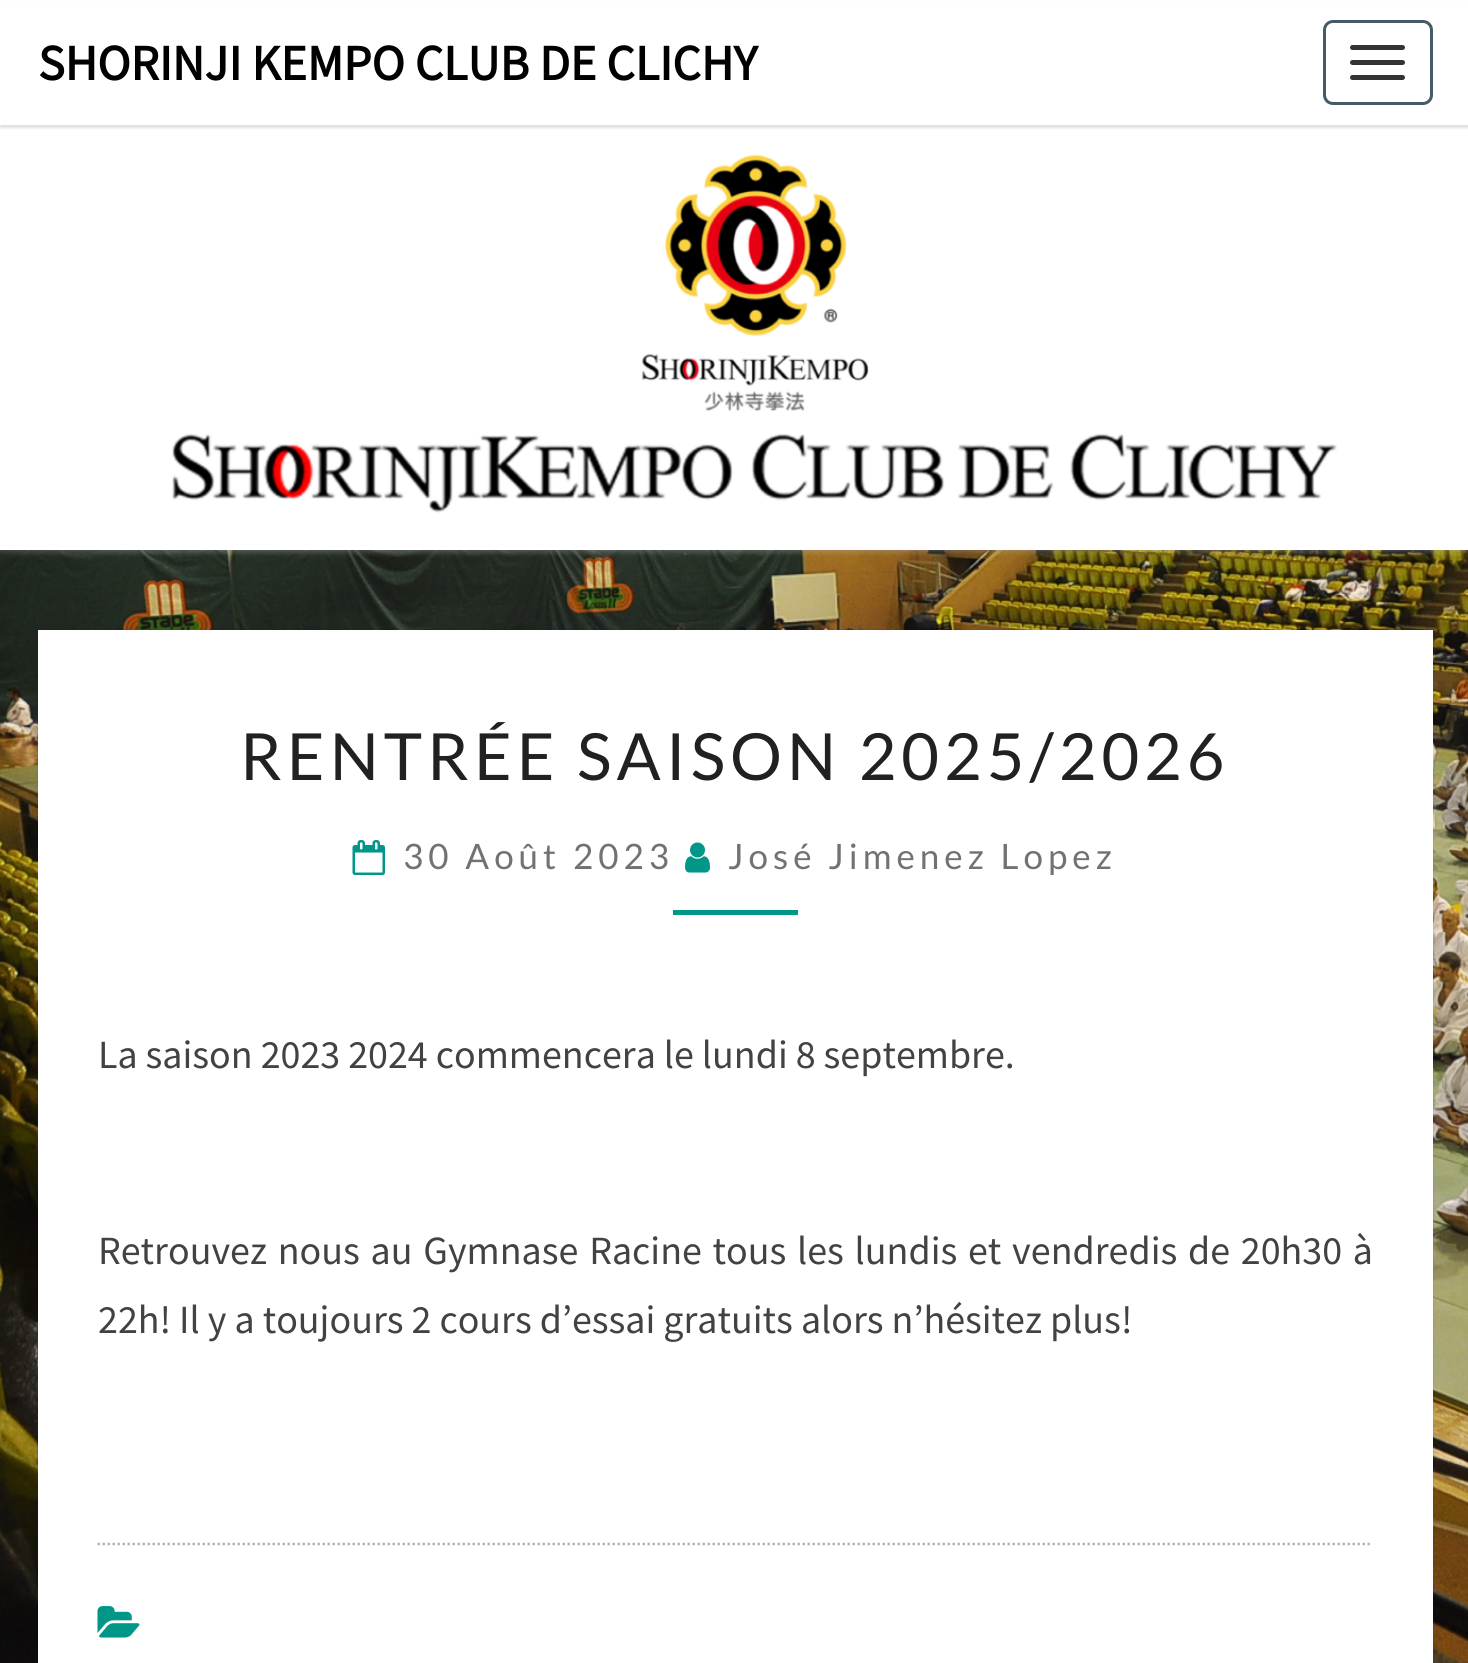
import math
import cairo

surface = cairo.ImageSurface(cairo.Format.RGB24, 1468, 1663)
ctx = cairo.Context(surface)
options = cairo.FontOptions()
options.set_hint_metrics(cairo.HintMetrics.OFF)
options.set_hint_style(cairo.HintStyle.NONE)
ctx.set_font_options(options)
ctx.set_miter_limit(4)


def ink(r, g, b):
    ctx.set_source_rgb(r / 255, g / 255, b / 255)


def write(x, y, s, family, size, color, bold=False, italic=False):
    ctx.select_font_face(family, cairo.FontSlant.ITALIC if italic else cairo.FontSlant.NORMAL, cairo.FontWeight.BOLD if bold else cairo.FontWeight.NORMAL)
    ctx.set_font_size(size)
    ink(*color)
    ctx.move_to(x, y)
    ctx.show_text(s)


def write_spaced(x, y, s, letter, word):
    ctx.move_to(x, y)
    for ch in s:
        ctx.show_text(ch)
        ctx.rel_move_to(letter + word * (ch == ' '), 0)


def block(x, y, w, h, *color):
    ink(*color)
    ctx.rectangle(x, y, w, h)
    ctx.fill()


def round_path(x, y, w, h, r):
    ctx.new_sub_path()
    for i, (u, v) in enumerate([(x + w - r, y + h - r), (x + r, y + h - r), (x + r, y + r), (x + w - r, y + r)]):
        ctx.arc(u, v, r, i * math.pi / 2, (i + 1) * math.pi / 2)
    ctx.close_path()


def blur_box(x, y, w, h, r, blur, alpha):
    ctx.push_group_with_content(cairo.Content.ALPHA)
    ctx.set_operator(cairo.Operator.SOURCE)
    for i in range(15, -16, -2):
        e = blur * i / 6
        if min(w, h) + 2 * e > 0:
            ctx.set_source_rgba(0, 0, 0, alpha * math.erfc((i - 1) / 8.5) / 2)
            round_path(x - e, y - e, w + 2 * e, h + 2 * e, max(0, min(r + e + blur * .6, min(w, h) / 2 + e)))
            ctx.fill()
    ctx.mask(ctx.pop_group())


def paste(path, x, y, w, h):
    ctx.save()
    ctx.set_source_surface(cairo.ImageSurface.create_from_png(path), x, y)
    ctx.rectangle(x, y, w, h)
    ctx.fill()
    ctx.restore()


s1 = dict(family="Source Sans Pro", size=50, color=(0, 0, 0), bold=True)
s2 = dict(family="Source Sans Pro", size=40, color=(66, 66, 66))

ink(255, 255, 255)
ctx.paint()
paste("pic1.png", 0, 550, 1468, 1113)
ink(182, 182, 182)
blur_box(-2, 123, 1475, 430, 0, 2.5, 0.3)
paste("pic2.png", 0, 125, 1468, 425)
ink(100, 100, 100)
blur_box(0, 3, 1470, 125, 0, 1, 0.2)
block(0, 2, 1468, 123, 255, 255, 255)
write(38, 80, "SHORINJI KEMPO CLUB DE CLICHY", **s1)
round_path(1324.5, 21.5, 107, 82, 8.5)
ink(69, 90, 100)
ctx.set_line_width(3)
ctx.stroke()
ink(51, 51, 51)
round_path(1350, 45, 55, 5, 2.5)
ctx.fill()
round_path(1350, 60, 55, 5, 2.5)
ctx.fill()
round_path(1350, 75, 55, 5, 2.5)
ctx.fill()
ink(0, 0, 0)
blur_box(38, 630, 1395, 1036, 0, 1, 0.15)
block(38, 630, 1395, 1033, 255, 255, 255)
ctx.select_font_face("Lato")
ctx.set_font_size(65)
ink(33, 33, 33)
write_spaced(240, 780, "RENTRÉE SAISON 2025/2026", 5, 0)
paste("pic3.png", 352, 840, 33, 35)
ctx.set_font_size(35)
ink(114, 114, 114)
write_spaced(403, 869, "30 Août 2023", 5, 0)
paste("pic4.png", 685, 842, 25, 31)
write_spaced(728, 869, "José Jimenez Lopez", 5, 0)
block(673, 910, 125, 5, 0, 150, 136)
write(98, 1068, "La saison 2023 2024 commencera le lundi 8 septembre.", **s2)
write_spaced(98, 1264, "Retrouvez nous au Gymnase Racine tous les lundis et vendredis de 20h30 à", 0, 2.75)
write(98, 1333, "22h! Il y a toujours 2 cours d’essai gratuits alors n’hésitez plus!", **s2)
ctx.new_path()
ctx.move_to(97.5, 1544)
ctx.line_to(1372.5, 1544)
ink(182, 182, 182)
ctx.set_line_width(2.5)
ctx.set_dash([2.5, 2.5])
ctx.stroke()
paste("pic5.png", 97, 1606, 43, 32)
surface.write_to_png("screenshot.png")
